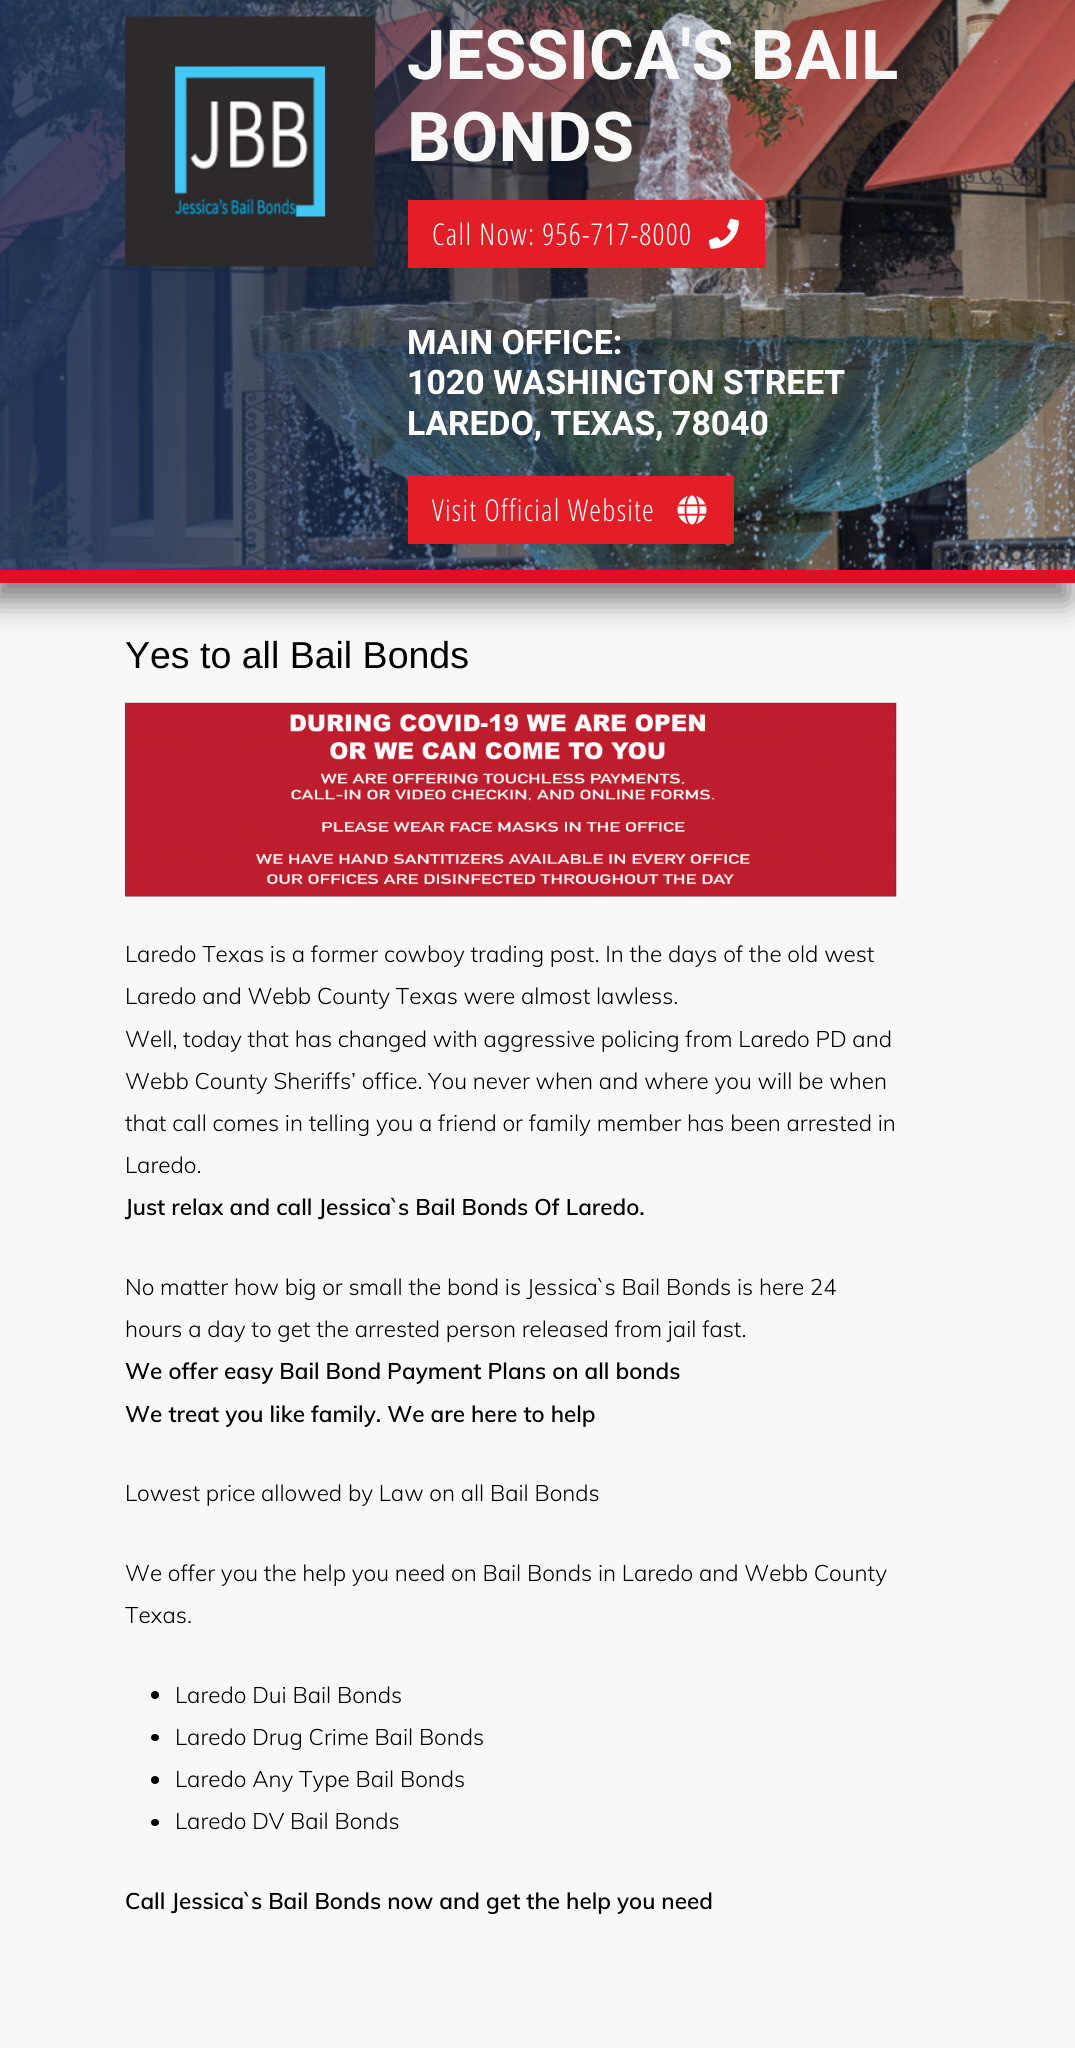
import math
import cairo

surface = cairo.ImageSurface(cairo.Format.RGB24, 1075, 2048)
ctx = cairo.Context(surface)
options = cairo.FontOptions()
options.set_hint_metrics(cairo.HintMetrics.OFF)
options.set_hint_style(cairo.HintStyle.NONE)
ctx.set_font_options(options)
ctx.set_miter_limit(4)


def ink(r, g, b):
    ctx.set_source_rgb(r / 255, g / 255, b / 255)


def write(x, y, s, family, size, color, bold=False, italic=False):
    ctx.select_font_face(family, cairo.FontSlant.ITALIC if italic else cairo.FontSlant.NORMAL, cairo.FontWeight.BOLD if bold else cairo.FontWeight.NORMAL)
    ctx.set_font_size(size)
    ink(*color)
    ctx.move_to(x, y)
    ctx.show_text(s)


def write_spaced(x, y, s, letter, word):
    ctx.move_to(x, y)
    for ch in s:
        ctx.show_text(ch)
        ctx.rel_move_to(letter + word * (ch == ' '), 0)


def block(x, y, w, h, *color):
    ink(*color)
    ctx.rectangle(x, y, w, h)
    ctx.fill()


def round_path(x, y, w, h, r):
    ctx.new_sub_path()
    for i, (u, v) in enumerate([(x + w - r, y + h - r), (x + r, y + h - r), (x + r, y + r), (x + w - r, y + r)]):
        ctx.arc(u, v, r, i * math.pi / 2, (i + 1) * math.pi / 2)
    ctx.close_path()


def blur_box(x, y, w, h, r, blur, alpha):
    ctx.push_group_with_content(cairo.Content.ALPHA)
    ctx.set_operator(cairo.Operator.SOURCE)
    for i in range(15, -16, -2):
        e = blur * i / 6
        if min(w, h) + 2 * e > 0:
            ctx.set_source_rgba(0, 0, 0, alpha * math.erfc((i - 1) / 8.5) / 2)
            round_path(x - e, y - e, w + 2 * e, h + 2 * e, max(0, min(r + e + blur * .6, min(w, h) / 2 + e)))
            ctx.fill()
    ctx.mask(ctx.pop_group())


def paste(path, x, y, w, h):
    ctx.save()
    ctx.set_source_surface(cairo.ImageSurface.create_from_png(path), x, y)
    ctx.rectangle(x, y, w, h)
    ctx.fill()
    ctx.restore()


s1 = dict(family="Heebo", size=68.75, color=(248, 248, 248), bold=True)
s2 = dict(family="Heebo", size=33.75, color=(255, 255, 255), bold=True)
s3 = dict(family="Liberation Sans", size=37.5, color=(0, 0, 0))
s4 = dict(family="Muli Light", size=22.5, color=(0, 0, 0))
s5 = dict(family="Muli SemiBold", size=22.5, color=(0, 0, 0))

ink(248, 248, 248)
ctx.paint()
ink(0, 0, 0)
blur_box(-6, -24, 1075, 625, 0, 15.5, 0.5)
paste("pic1.png", 0, 0, 1075, 570)
block(0, 570, 1075, 13, 225, 15, 37)
paste("pic2.png", 125, 16, 250, 251)
write(407, 79, "JESSICA'S BAIL", **s1)
write(407, 161, "BONDS", **s1)
block(408, 200, 357, 68, 228, 30, 39)
ctx.select_font_face("Open Sans Condensed Light")
ctx.set_font_size(30)
ink(255, 255, 255)
write_spaced(432, 245, "Call Now: 956-717-8000", 1.25, 0)
paste("pic3.png", 708, 218, 31, 31)
write(407, 354, "MAIN OFFICE:", **s2)
write(407, 394, "1020 WASHINGTON STREET", **s2)
write(407, 435, "LAREDO, TEXAS, 78040", **s2)
block(408, 476, 326, 68, 228, 30, 39)
ctx.select_font_face("Open Sans Condensed Light")
ctx.set_font_size(30)
ink(255, 255, 255)
write_spaced(432, 521, "Visit Official Website", 1.25, 0)
paste("pic4.png", 677, 495, 30, 30)
write(125, 668, "Yes to all Bail Bonds", **s3)
paste("pic5.png", 125, 702, 772, 195)
write(125, 962, "Laredo Texas is a former cowboy trading post. In the days of the old west", **s4)
write(125, 1004, "Laredo and Webb County Texas were almost lawless.", **s4)
write(125, 1047, "Well, today that has changed with aggressive policing from Laredo PD and", **s4)
write(125, 1089, "Webb County Sheriffs’ office. You never when and where you will be when", **s4)
write(125, 1131, "that call comes in telling you a friend or family member has been arrested in", **s4)
write(125, 1173, "Laredo.", **s4)
write(125, 1215, "Just relax and call Jessica`s Bail Bonds Of Laredo.", **s5)
write(125, 1295, "No matter how big or small the bond is Jessica`s Bail Bonds is here 24", **s4)
write(125, 1337, "hours a day to get the arrested person released from jail fast.", **s4)
write(125, 1379, "We offer easy Bail Bond Payment Plans on all bonds", **s5)
write(125, 1422, "We treat you like family. We are here to help", **s5)
write(125, 1501, "Lowest price allowed by Law on all Bail Bonds", **s4)
write(125, 1581, "We offer you the help you need on Bail Bonds in Laredo and Webb County", **s4)
write(125, 1623, "Texas.", **s4)
ctx.new_path()
ctx.arc(155, 1695, 4, 0, 2 * math.pi)
ctx.fill()
write(175, 1703, "Laredo Dui Bail Bonds", **s4)
round_path(151, 1734, 8, 7, 3.5)
ctx.fill()
write(175, 1745, "Laredo Drug Crime Bail Bonds", **s4)
ctx.new_path()
ctx.arc(155, 1780, 4, 0, 2 * math.pi)
ctx.fill()
write(175, 1787, "Laredo Any Type Bail Bonds", **s4)
round_path(151, 1819, 8, 7, 3.5)
ctx.fill()
write(175, 1829, "Laredo DV Bail Bonds", **s4)
write(125, 1909, "Call Jessica`s Bail Bonds now and get the help you need", **s5)
surface.write_to_png("screenshot.png")
